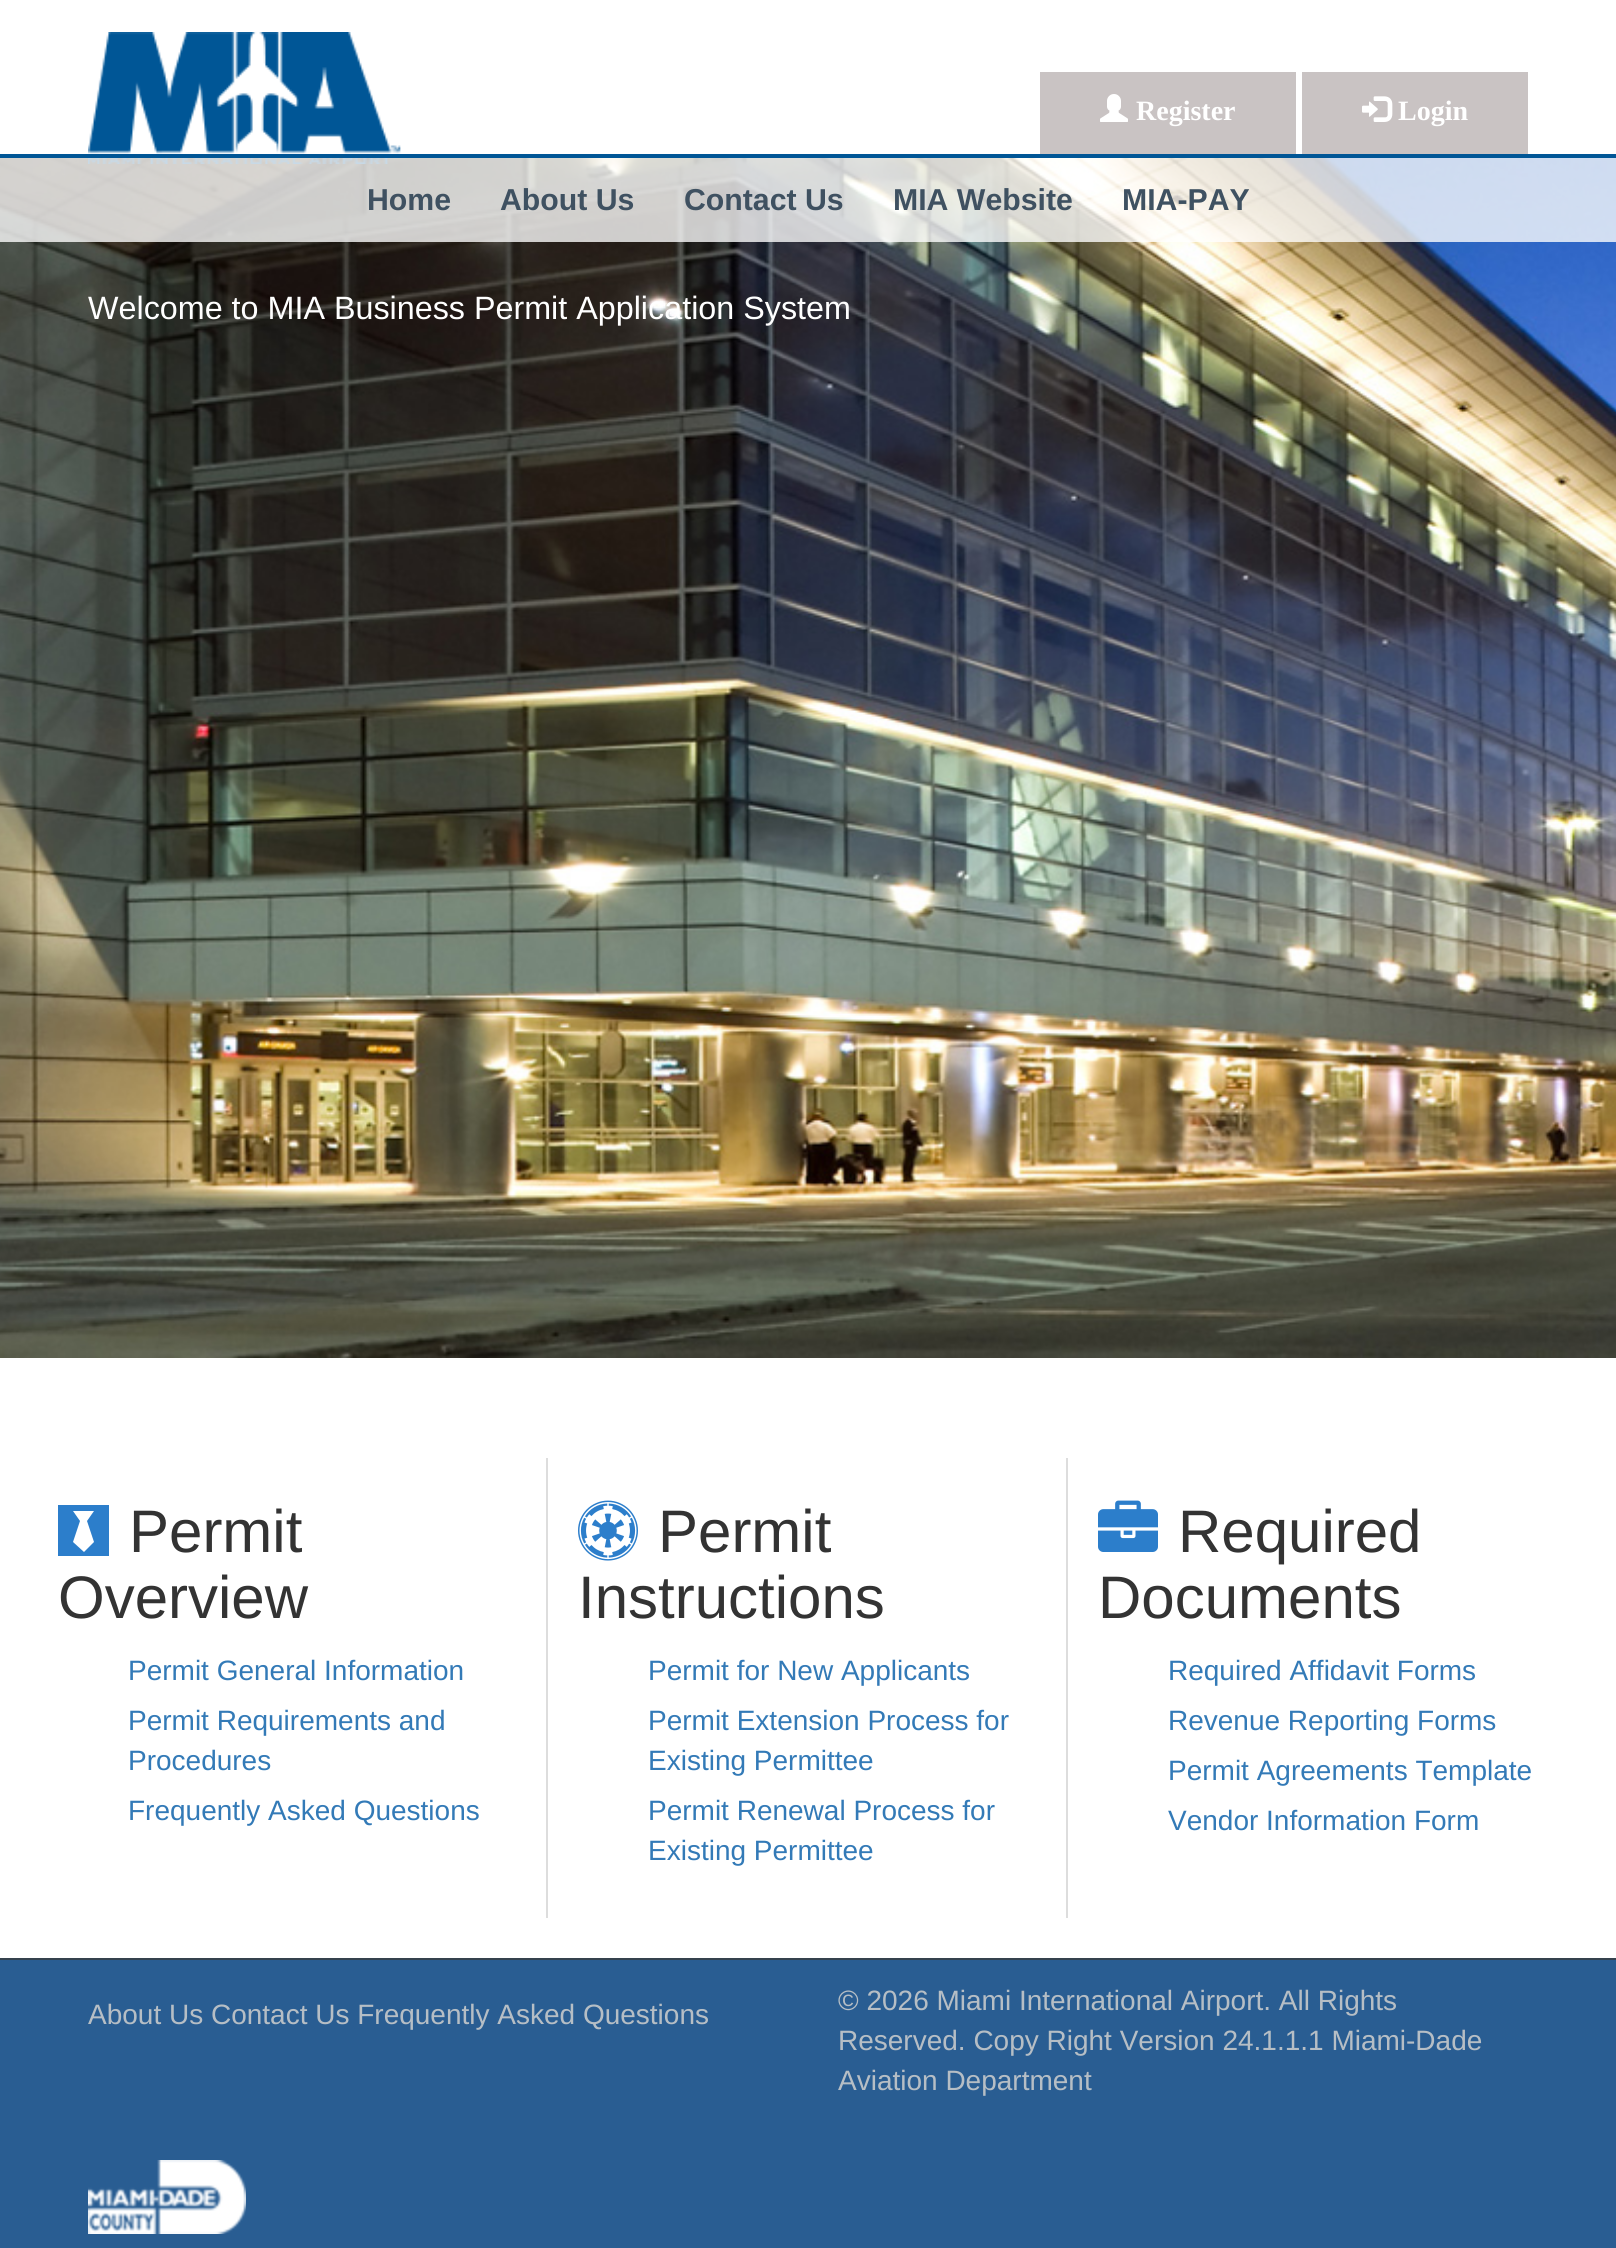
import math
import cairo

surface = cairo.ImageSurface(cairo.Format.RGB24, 1616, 2248)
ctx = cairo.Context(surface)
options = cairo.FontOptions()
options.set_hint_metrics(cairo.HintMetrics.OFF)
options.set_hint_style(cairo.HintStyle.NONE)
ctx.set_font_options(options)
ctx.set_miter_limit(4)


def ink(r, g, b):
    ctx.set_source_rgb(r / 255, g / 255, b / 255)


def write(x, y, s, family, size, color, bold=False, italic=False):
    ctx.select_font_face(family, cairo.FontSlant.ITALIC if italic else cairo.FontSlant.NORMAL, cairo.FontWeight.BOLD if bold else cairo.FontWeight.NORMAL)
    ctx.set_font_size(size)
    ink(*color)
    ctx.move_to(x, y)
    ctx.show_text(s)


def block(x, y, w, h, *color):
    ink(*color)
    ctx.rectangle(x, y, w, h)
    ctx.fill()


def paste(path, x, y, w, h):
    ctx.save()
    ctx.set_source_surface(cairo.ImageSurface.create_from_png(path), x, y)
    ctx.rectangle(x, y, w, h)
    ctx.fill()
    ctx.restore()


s1 = dict(family="Liberation Serif", size=28, color=(255, 255, 255), bold=True)
s2 = dict(family="Liberation Sans", size=30.25, color=(63, 81, 97), bold=True)
s3 = dict(family="Liberation Sans", size=32.3, color=(255, 255, 255))
s4 = dict(family="Liberation Sans", size=60, color=(51, 51, 51))
s5 = dict(family="Liberation Sans", size=28, color=(51, 122, 183))
s6 = dict(family="Liberation Sans", size=28, color=(182, 190, 197))

ink(255, 255, 255)
ctx.paint()
block(0, 154, 1616, 4, 0, 86, 150)
paste("pic4.png", 0, 158, 1616, 1200)
paste("pic1.png", 88, 32, 313, 132)
block(1040, 72, 256, 82, 201, 195, 195)
paste("pic2.png", 1100, 94, 28, 28)
write(1136, 120, "Register", **s1)
block(1302, 72, 226, 82, 201, 195, 195)
paste("pic3.png", 1362, 96, 31, 26)
write(1398, 120, "Login", **s1)
ctx.set_source_rgba(1, 1, 1, 0.78)
ctx.rectangle(0, 158, 1616, 84)
ctx.fill()
write(367, 210, "Home", **s2)
write(500, 210, "About Us", **s2)
write(684, 210, "Contact Us", **s2)
write(893, 210, "MIA Website", **s2)
write(1122, 210, "MIA-PAY", **s2)
write(88, 319, "Welcome to MIA Business Permit Application System", **s3)
block(546, 1458, 2, 460, 221, 221, 221)
ink(44, 126, 203)
ctx.new_path()
ctx.move_to(58, 1505)
ctx.line_to(109, 1505)
ctx.line_to(109, 1556)
ctx.line_to(58, 1556)
ctx.close_path()
ctx.move_to(94, 1542)
ctx.line_to(87, 1521)
ctx.line_to(94, 1511)
ctx.line_to(73, 1511)
ctx.line_to(80, 1521)
ctx.line_to(73, 1542)
ctx.line_to(84, 1552)
ctx.close_path()
ctx.fill()
write(129, 1552, "Permit", **s4)
write(58, 1618, "Overview", **s4)
write(128, 1680, "Permit General Information", **s5)
write(128, 1730, "Permit Requirements and", **s5)
write(128, 1770, "Procedures", **s5)
write(128, 1820, "Frequently Asked Questions", **s5)
block(1066, 1458, 2, 460, 221, 221, 221)
paste("pic5.png", 578, 1500, 60, 61)
write(658, 1552, "Permit", **s4)
write(578, 1618, "Instructions", **s4)
write(648, 1680, "Permit for New Applicants", **s5)
write(648, 1730, "Permit Extension Process for", **s5)
write(648, 1770, "Existing Permittee", **s5)
write(648, 1820, "Permit Renewal Process for", **s5)
write(648, 1860, "Existing Permittee", **s5)
paste("pic6.png", 1098, 1500, 60, 52)
write(1178, 1552, "Required", **s4)
write(1098, 1618, "Documents", **s4)
write(1168, 1680, "Required Affidavit Forms", **s5)
write(1168, 1730, "Revenue Reporting Forms", **s5)
write(1168, 1780, "Permit Agreements Template", **s5)
write(1168, 1830, "Vendor Information Form", **s5)
block(0, 1960, 1616, 288, 41, 93, 146)
block(0, 1958, 1616, 2, 53, 66, 78)
write(88, 2024, "About Us Contact Us Frequently Asked Questions", **s6)
write(838, 2010, "© 2026 Miami International Airport. All Rights", **s6)
write(838, 2050, "Reserved. Copy Right Version 24.1.1.1 Miami-Dade", **s6)
write(838, 2090, "Aviation Department", **s6)
paste("pic7.png", 88, 2160, 158, 74)
surface.write_to_png("screenshot.png")
